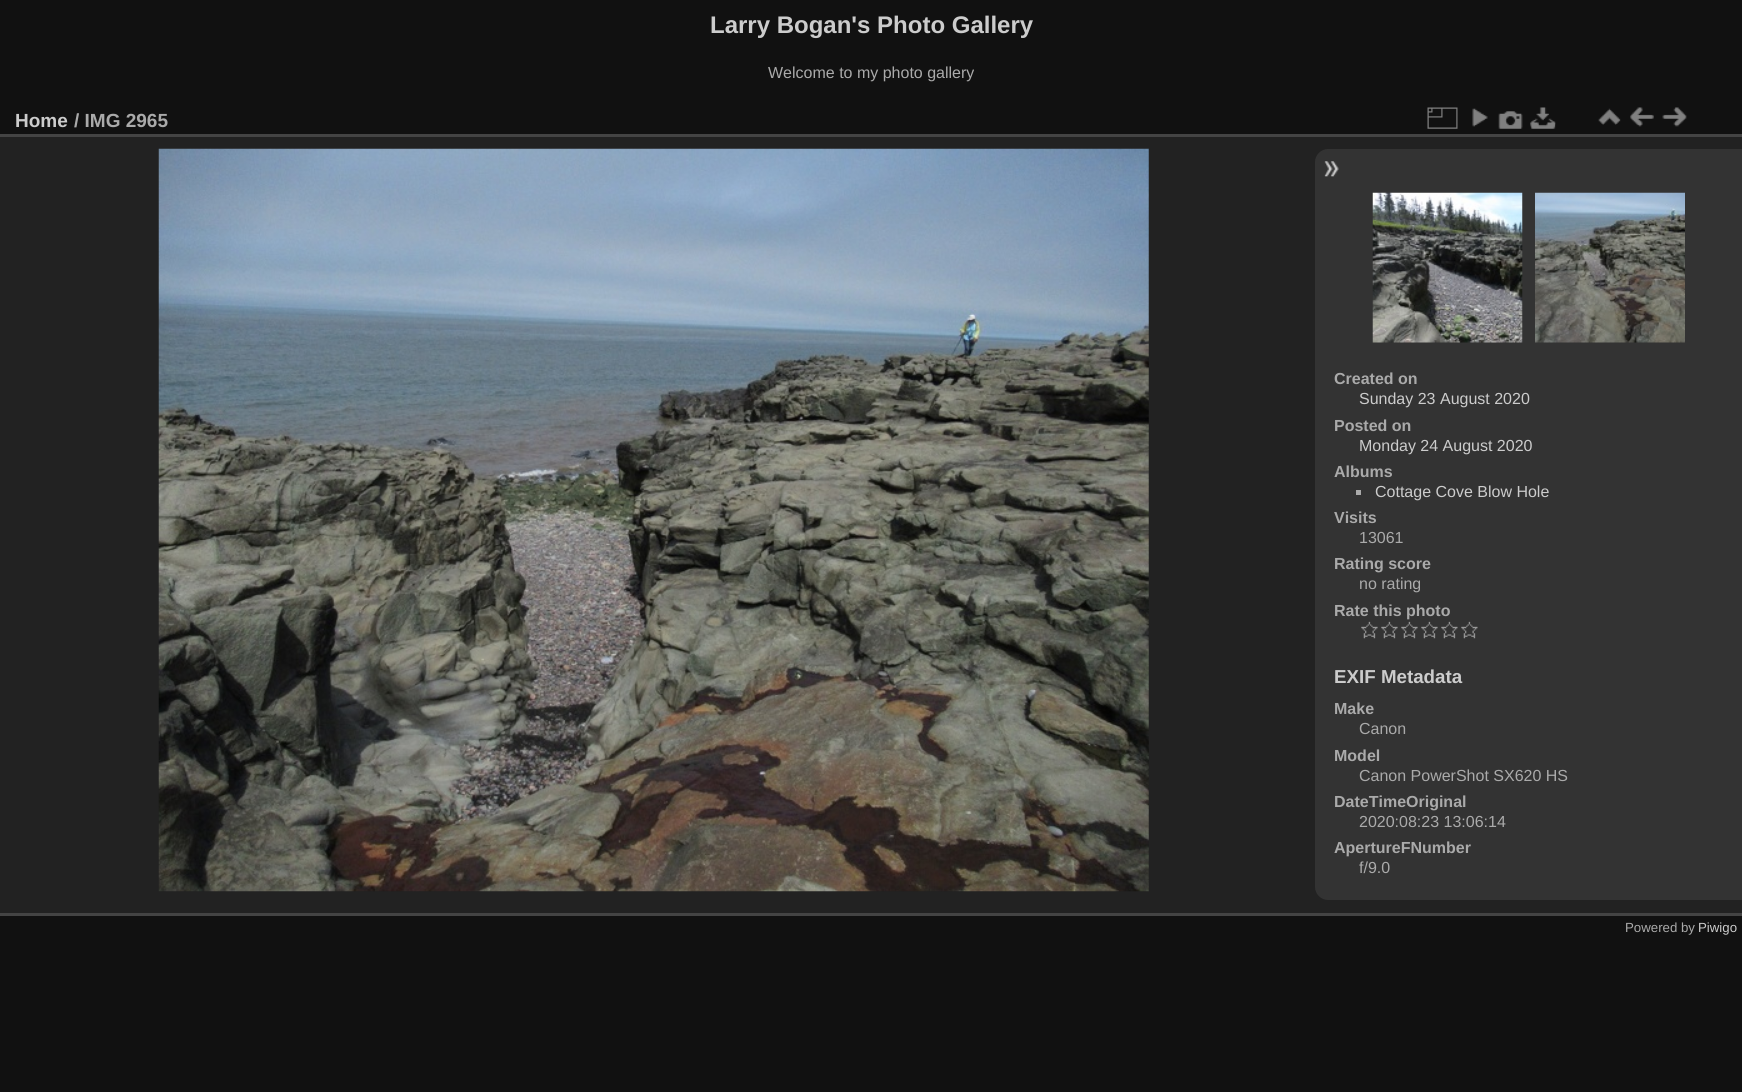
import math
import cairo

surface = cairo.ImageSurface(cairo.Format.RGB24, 1742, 1092)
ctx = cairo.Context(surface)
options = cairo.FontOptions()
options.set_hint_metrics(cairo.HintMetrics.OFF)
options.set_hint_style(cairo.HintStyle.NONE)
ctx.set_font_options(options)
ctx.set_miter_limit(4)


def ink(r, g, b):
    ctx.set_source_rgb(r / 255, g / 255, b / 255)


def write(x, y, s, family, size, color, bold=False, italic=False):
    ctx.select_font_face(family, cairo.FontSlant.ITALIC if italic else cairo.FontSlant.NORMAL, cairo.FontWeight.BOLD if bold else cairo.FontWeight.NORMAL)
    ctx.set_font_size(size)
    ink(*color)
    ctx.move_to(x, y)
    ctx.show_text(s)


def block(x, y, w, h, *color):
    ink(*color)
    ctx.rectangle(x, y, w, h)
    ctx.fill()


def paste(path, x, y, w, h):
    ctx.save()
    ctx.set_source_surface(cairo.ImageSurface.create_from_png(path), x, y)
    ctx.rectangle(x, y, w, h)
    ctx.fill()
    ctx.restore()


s1 = dict(family="Liberation Sans", size=24, color=(204, 204, 204), bold=True)
s2 = dict(family="Liberation Sans", size=16, color=(170, 170, 170))
s3 = dict(family="Liberation Sans", size=19, color=(204, 204, 204), bold=True)
s4 = dict(family="Liberation Sans", size=19, color=(170, 170, 170), bold=True)
s5 = dict(family="Liberation Sans", size=16, color=(170, 170, 170), bold=True)
s6 = dict(family="Liberation Sans", size=16, color=(204, 204, 204))
s7 = dict(family="Liberation Sans", size=18.75, color=(204, 204, 204), bold=True)
s8 = dict(family="Liberation Sans", size=13.25, color=(170, 170, 170))
s9 = dict(family="Liberation Sans", size=13.25, color=(204, 204, 204))

ink(17, 17, 17)
ctx.paint()
write(710, 33, "Larry Bogan's Photo Gallery", **s1)
write(768, 78, "Welcome to my photo gallery", **s2)
block(0, 137, 1742, 776, 34, 34, 34)
block(0, 913, 1742, 3, 68, 68, 68)
block(0, 134, 1742, 3, 68, 68, 68)
write(15, 127, "Home", **s3)
write(74, 127, "/ IMG 2965", **s4)
paste("pic1.png", 1427, 107, 31, 22)
paste("pic2.png", 1472, 108, 16, 19)
paste("pic3.png", 1498, 111, 25, 18)
paste("pic4.png", 1530, 107, 26, 22)
paste("pic5.png", 1598, 108, 23, 17)
paste("pic6.png", 1630, 107, 24, 20)
paste("pic7.png", 1662, 107, 25, 20)
paste("pic8.png", 158, 148, 991, 744)
ink(51, 51, 51)
ctx.new_path()
ctx.move_to(1328, 149)
ctx.line_to(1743, 149)
ctx.line_to(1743, 900)
ctx.line_to(1328, 900)
ctx.curve_to(1321, 900, 1315, 894, 1315, 887)
ctx.line_to(1315, 162)
ctx.curve_to(1315, 155, 1321, 149, 1328, 149)
ctx.close_path()
ctx.fill()
paste("pic9.png", 1324, 161, 15, 16)
paste("pic10.png", 1372, 192, 151, 151)
paste("pic11.png", 1535, 192, 150, 151)
write(1334, 384, "Created on", **s5)
write(1359, 404, "Sunday 23 August 2020", **s6)
write(1334, 431, "Posted on", **s5)
write(1359, 451, "Monday 24 August 2020", **s6)
write(1334, 477, "Albums", **s5)
block(1356, 490, 5, 5, 170, 170, 170)
write(1375, 497, "Cottage Cove Blow Hole", **s6)
write(1334, 523, "Visits", **s5)
write(1359, 543, "13061", **s2)
write(1334, 569, "Rating score", **s5)
write(1359, 589, "no rating", **s2)
write(1334, 616, "Rate this photo", **s5)
paste("pic12.png", 1361, 621, 17, 18)
paste("pic12.png", 1381, 621, 17, 18)
paste("pic12.png", 1401, 621, 17, 18)
paste("pic12.png", 1421, 621, 17, 18)
paste("pic13.png", 1441, 621, 17, 18)
paste("pic13.png", 1461, 621, 17, 18)
write(1334, 683, "EXIF Metadata", **s7)
write(1334, 714, "Make", **s5)
write(1359, 734, "Canon", **s2)
write(1334, 761, "Model", **s5)
write(1359, 781, "Canon PowerShot SX620 HS", **s2)
write(1334, 807, "DateTimeOriginal", **s5)
write(1359, 827, "2020:08:23 13:06:14", **s2)
write(1334, 853, "ApertureFNumber", **s5)
write(1359, 873, "f/9.0", **s2)
write(1625, 932, "Powered by", **s8)
write(1698, 932, "Piwigo", **s9)
surface.write_to_png("screenshot.png")
